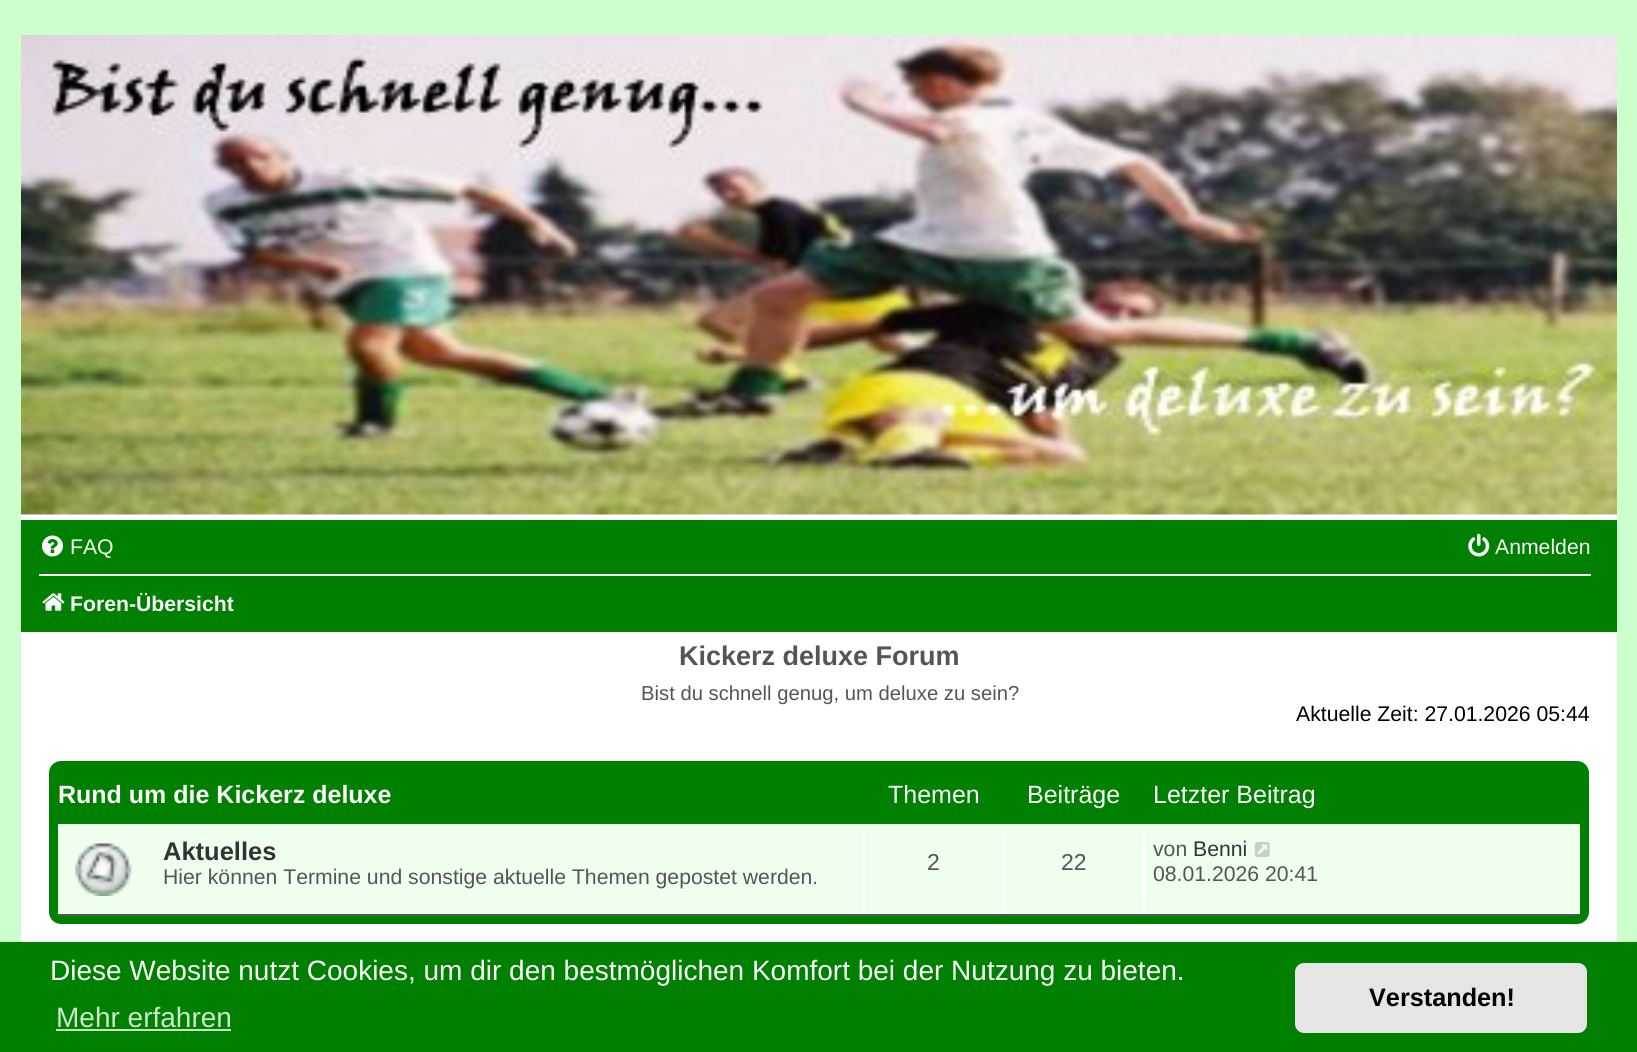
import math
import cairo

surface = cairo.ImageSurface(cairo.Format.RGB24, 1637, 1052)
ctx = cairo.Context(surface)
options = cairo.FontOptions()
options.set_hint_metrics(cairo.HintMetrics.OFF)
options.set_hint_style(cairo.HintStyle.NONE)
ctx.set_font_options(options)
ctx.set_miter_limit(4)


def ink(r, g, b):
    ctx.set_source_rgb(r / 255, g / 255, b / 255)


def write(x, y, s, family, size, color, bold=False, italic=False):
    ctx.select_font_face(family, cairo.FontSlant.ITALIC if italic else cairo.FontSlant.NORMAL, cairo.FontWeight.BOLD if bold else cairo.FontWeight.NORMAL)
    ctx.set_font_size(size)
    ink(*color)
    ctx.move_to(x, y)
    ctx.show_text(s)


def block(x, y, w, h, *color):
    ink(*color)
    ctx.rectangle(x, y, w, h)
    ctx.fill()


def round_path(x, y, w, h, r):
    ctx.new_sub_path()
    for i, (u, v) in enumerate([(x + w - r, y + h - r), (x + r, y + h - r), (x + r, y + r), (x + w - r, y + r)]):
        ctx.arc(u, v, r, i * math.pi / 2, (i + 1) * math.pi / 2)
    ctx.close_path()


def paste(path, x, y, w, h):
    ctx.save()
    ctx.set_source_surface(cairo.ImageSurface.create_from_png(path), x, y)
    ctx.rectangle(x, y, w, h)
    ctx.fill()
    ctx.restore()


s1 = dict(family="Liberation Sans", size=21.2, color=(250, 250, 250))
s2 = dict(family="Liberation Sans", size=21.2, color=(250, 250, 250), bold=True)
s3 = dict(family="Liberation Sans", size=27, color=(85, 85, 85), bold=True)
s4 = dict(family="Liberation Sans", size=20.25, color=(85, 85, 85))
s5 = dict(family="Liberation Sans", size=21.2, color=(0, 0, 0))
s6 = dict(family="Liberation Sans", size=25, color=(250, 250, 250), bold=True)
s7 = dict(family="Liberation Sans", size=25, color=(250, 250, 250))
s8 = dict(family="Liberation Sans", size=25.5, color=(51, 51, 51), bold=True)
s9 = dict(family="Liberation Sans", size=21.2, color=(85, 85, 85))
s10 = dict(family="Liberation Sans", size=23, color=(85, 85, 85))
s11 = dict(family="Liberation Sans", size=21.2, color=(51, 51, 51))
s12 = dict(family="Liberation Sans", size=28, color=(250, 250, 250))
s13 = dict(family="Liberation Sans", size=28, color=(204, 230, 204))
s14 = dict(family="Liberation Sans", size=25.25, color=(0, 0, 0), bold=True)

ink(204, 255, 204)
ctx.paint()
block(21, 514, 1596, 428, 255, 255, 255)
paste("pic1.png", 21, 35, 1596, 480)
block(21, 520, 1596, 112, 0, 128, 0)
paste("pic2.png", 42, 535, 21, 22)
write(70, 554, "FAQ", **s1)
paste("pic3.png", 1468, 533, 22, 24)
write(1495, 554, "Anmelden", **s1)
block(39, 574, 1552, 2, 255, 255, 255)
paste("pic4.png", 42, 593, 23, 18)
write(70, 611, "Foren-Übersicht", **s2)
write(679, 665, "Kickerz deluxe Forum", **s3)
write(641, 700, "Bist du schnell genug, um deluxe zu sein?", **s4)
write(1296, 721, "Aktuelle Zeit: 27.01.2026 05:44", **s5)
ink(0, 128, 0)
round_path(49, 761, 1540, 163, 12)
ctx.fill()
write(58, 803, "Rund um die Kickerz deluxe", **s6)
write(888, 803, "Themen", **s7)
write(1027, 803, "Beiträge", **s7)
write(1153, 803, "Letzter Beitrag", **s7)
block(58, 826, 1522, 88, 238, 255, 238)
block(58, 824, 1522, 2, 243, 247, 234)
block(58, 914, 1522, 2, 85, 85, 85)
paste("pic5.png", 75, 843, 57, 53)
write(163, 860, "Aktuelles", **s8)
write(163, 884, "Hier können Termine und sonstige aktuelle Themen gepostet werden.", **s9)
block(863, 830, 2, 84, 255, 255, 255)
write(927, 870, "2", **s10)
block(1003, 830, 2, 84, 255, 255, 255)
write(1061, 870, "22", **s10)
block(1143, 830, 2, 84, 255, 255, 255)
write(1153, 856, "von", **s9)
write(1193, 856, "Benni", **s11)
paste("pic6.png", 1254, 842, 16, 15)
write(1153, 881, "08.01.2026 20:41", **s9)
block(0, 942, 1637, 110, 0, 128, 0)
write(50, 980, "Diese Website nutzt Cookies, um dir den bestmöglichen Komfort bei der Nutzung zu bieten.", **s12)
write(56, 1027, "Mehr erfahren", **s13)
block(56, 1029, 175, 2, 204, 230, 204)
ink(229, 229, 229)
round_path(1295, 963, 292, 70, 9)
ctx.fill()
write(1369, 1006, "Verstanden!", **s14)
surface.write_to_png("screenshot.png")
